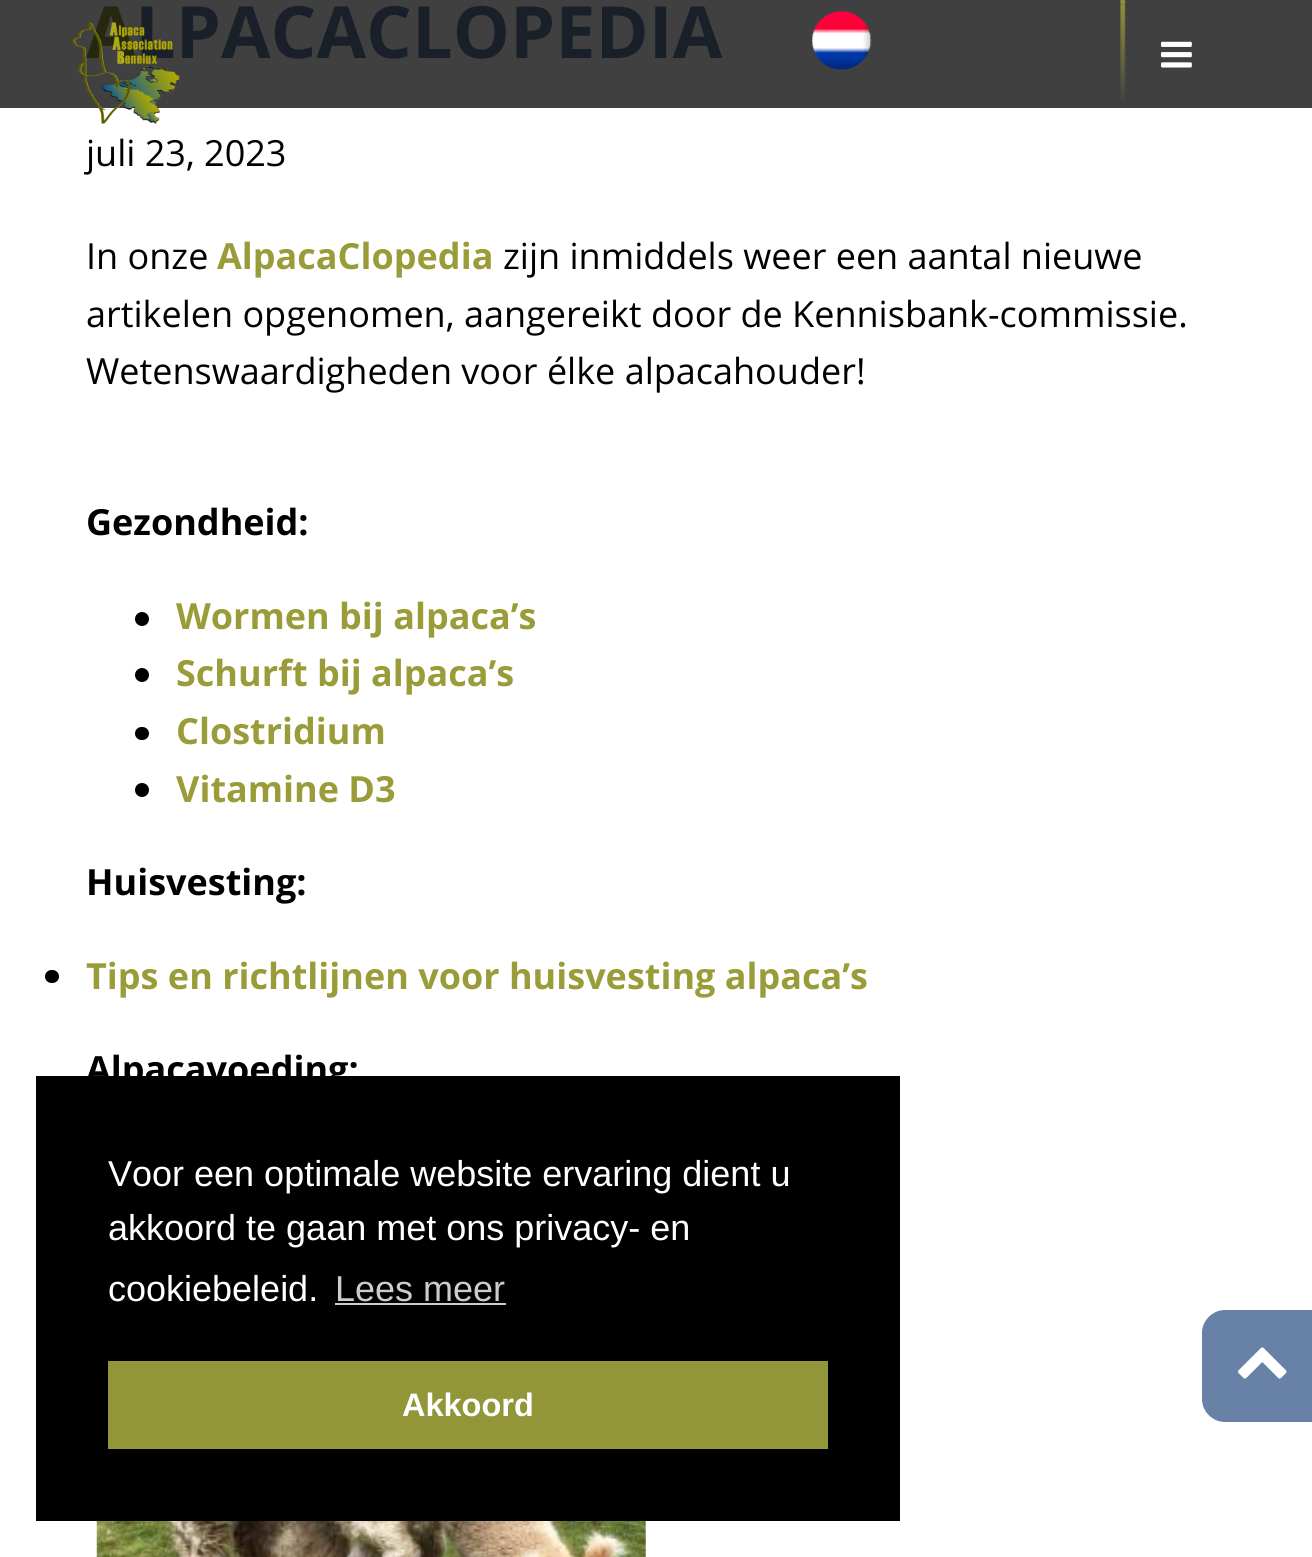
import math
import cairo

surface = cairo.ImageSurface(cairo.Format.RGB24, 1312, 1557)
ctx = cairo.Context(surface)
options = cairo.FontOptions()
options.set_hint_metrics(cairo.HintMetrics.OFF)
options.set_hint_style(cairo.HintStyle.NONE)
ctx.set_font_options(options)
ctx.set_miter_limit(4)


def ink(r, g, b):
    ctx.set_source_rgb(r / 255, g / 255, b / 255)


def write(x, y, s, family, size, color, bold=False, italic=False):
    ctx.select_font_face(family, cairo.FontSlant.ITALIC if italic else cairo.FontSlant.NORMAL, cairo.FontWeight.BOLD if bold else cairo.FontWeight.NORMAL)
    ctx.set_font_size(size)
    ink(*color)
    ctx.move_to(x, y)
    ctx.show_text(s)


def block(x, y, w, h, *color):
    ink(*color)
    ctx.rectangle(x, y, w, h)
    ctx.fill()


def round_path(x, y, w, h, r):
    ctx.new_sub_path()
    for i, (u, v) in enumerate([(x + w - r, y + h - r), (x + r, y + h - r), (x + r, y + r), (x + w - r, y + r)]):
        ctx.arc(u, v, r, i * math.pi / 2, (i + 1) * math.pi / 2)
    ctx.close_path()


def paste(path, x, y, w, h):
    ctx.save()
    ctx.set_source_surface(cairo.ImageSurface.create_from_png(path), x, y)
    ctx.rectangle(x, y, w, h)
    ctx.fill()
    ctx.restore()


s1 = dict(family="Noto Sans", size=72, color=(38, 39, 15), bold=True)
s2 = dict(family="Open Sans", size=72, color=(26, 32, 42), bold=True)
s3 = dict(family="Open Sans", size=36, color=(0, 0, 0))
s4 = dict(family="Open Sans", size=36, color=(154, 156, 57), bold=True)
s5 = dict(family="Open Sans", size=36, color=(0, 0, 0), bold=True)
s6 = dict(family="Liberation Sans", size=36, color=(255, 255, 255))
s7 = dict(family="Liberation Sans", size=36, color=(204, 204, 204))
s8 = dict(family="Liberation Sans", size=32.5, color=(255, 255, 255), bold=True)

ink(255, 255, 255)
ctx.paint()
block(0, 0, 1312, 108, 64, 64, 64)
write(86, 58, "A", **s1)
write(135, 58, "LPACACLOPEDIA", **s2)
paste("pic1.png", 72, 22, 108, 102)
paste("pic2.png", 812, 11, 60, 59)
paste("pic3.png", 1120, 0, 6, 101)
paste("pic4.png", 1161, 41, 31, 27)
write(86, 166, "juli 23, 2023", **s3)
write(86, 269, "In onze", **s3)
write(217, 269, "AlpacaClopedia", **s4)
write(503, 269, "zijn inmiddels weer een aantal nieuwe", **s3)
write(86, 327, "artikelen opgenomen, aangereikt door de Kennisbank-commissie.", **s3)
write(86, 384, "Wetenswaardigheden voor élke alpacahouder!", **s3)
write(86, 535, "Gezondheid:", **s5)
ctx.new_path()
ctx.arc(142, 619, 7, 0, 2 * math.pi)
ctx.fill()
write(176, 629, "Wormen bij alpaca’s", **s4)
ink(0, 0, 0)
ctx.new_path()
ctx.arc(142, 675, 7, 0, 2 * math.pi)
ctx.fill()
write(176, 686, "Schurft bij alpaca’s", **s4)
ink(0, 0, 0)
round_path(135, 727, 14, 13, 6.5)
ctx.fill()
write(176, 744, "Clostridium", **s4)
ink(0, 0, 0)
ctx.new_path()
ctx.arc(142, 790, 7, 0, 2 * math.pi)
ctx.fill()
write(176, 802, "Vitamine D3", **s4)
write(86, 895, "Huisvesting:", **s5)
round_path(45, 970, 14, 13, 6.5)
ctx.fill()
write(86, 989, "Tips en richtlijnen voor huisvesting alpaca’s", **s4)
write(86, 1082, "Alpacavoeding:", **s5)
paste("pic5.png", 96, 1521, 550, 36)
block(36, 1076, 864, 445, 0, 0, 0)
write(108, 1186, "Voor een optimale website ervaring dient u", **s6)
write(108, 1240, "akkoord te gaan met ons privacy- en", **s6)
write(108, 1301, "cookiebeleid.", **s6)
write(335, 1301, "Lees meer", **s7)
block(335, 1303, 171, 2, 204, 204, 204)
block(108, 1361, 720, 88, 147, 149, 57)
write(402, 1416, "Akkoord", **s8)
ink(103, 129, 167)
ctx.new_path()
ctx.move_to(1225, 1310)
ctx.line_to(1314, 1310)
ctx.line_to(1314, 1422)
ctx.line_to(1225, 1422)
ctx.curve_to(1212.5, 1422, 1202, 1411.5, 1202, 1399)
ctx.line_to(1202, 1333)
ctx.curve_to(1202, 1320.5, 1212.5, 1310, 1225, 1310)
ctx.close_path()
ctx.fill()
paste("pic6.png", 1238, 1347, 49, 32)
surface.write_to_png("screenshot.png")
